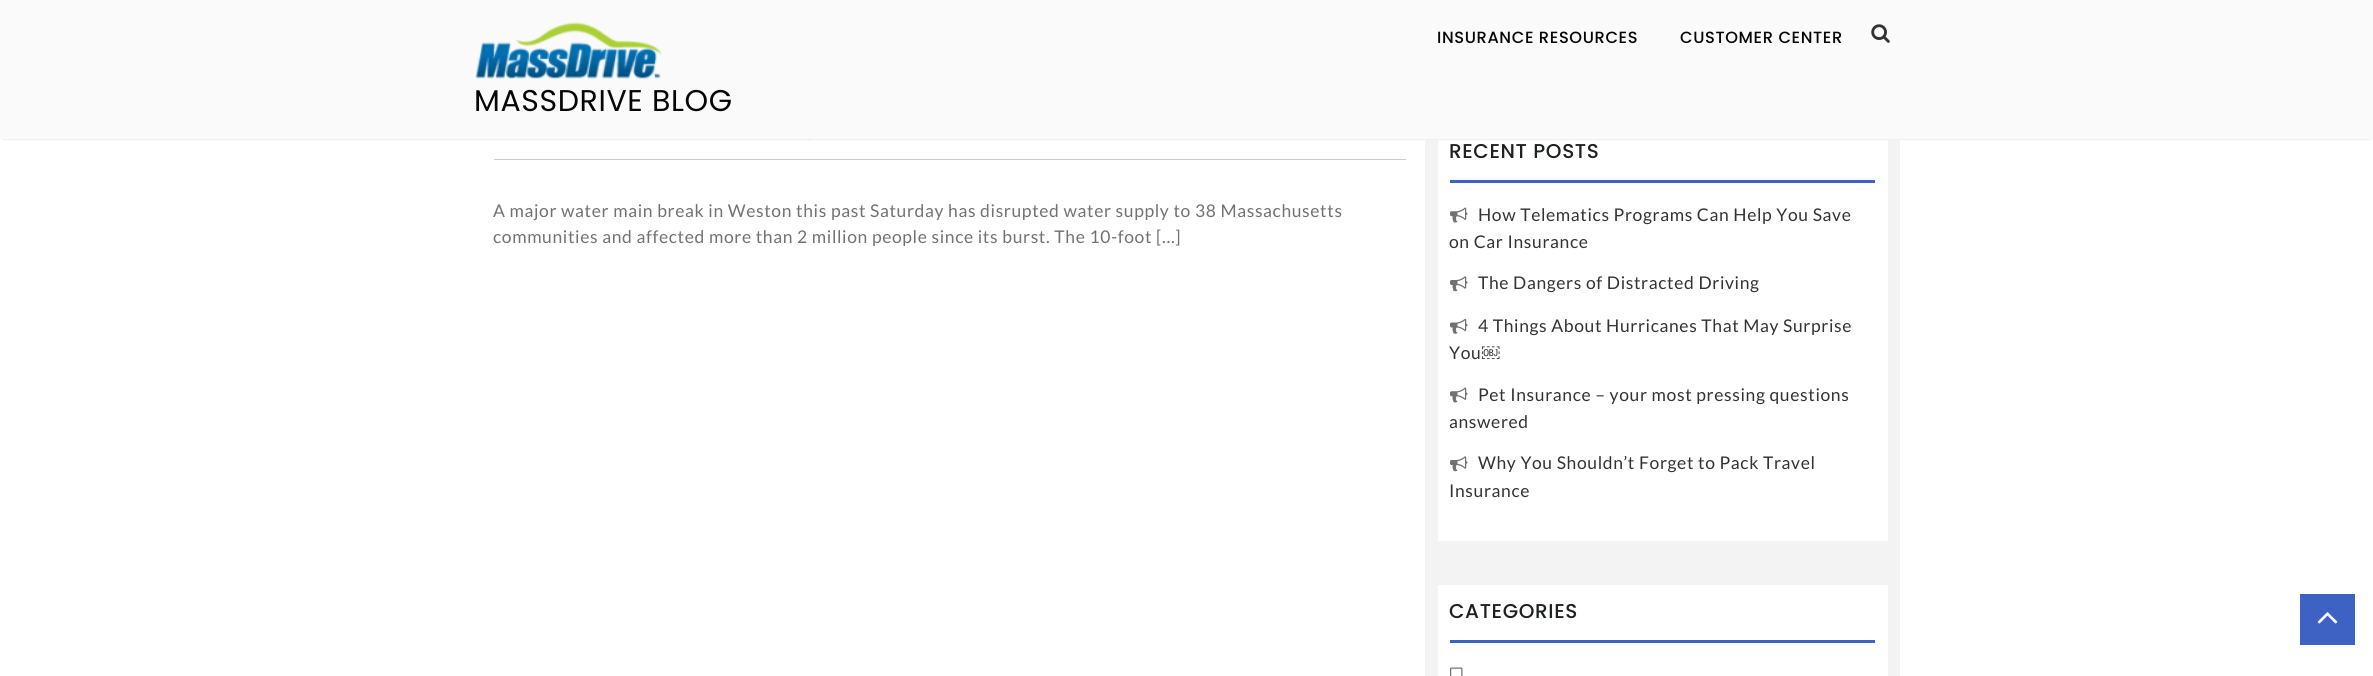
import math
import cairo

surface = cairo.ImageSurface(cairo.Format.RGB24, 2373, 676)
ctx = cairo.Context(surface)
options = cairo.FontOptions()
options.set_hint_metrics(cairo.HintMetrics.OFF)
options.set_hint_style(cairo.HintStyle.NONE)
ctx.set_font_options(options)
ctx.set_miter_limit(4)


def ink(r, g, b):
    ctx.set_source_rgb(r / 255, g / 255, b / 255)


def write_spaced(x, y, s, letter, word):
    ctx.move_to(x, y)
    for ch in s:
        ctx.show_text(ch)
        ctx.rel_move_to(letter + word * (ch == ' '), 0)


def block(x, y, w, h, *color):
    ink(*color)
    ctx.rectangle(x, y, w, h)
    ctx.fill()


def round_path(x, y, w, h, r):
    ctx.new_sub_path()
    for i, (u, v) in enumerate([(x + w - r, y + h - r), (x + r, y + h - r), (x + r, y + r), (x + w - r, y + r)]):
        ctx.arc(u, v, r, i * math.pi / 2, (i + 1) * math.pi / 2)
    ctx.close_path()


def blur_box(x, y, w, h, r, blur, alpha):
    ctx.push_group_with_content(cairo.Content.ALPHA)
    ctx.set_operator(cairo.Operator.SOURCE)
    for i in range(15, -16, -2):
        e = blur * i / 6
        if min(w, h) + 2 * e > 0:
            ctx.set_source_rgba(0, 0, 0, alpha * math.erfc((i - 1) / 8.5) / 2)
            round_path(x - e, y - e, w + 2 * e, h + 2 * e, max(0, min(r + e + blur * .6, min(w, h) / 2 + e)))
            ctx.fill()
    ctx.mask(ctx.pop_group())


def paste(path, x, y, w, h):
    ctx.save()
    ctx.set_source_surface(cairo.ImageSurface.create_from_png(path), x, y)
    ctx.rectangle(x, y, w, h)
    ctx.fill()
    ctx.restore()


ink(255, 255, 255)
ctx.paint()
paste("pic3.png", 808, 139, 4, 1)
block(1425, 139, 475, 537, 243, 243, 243)
block(1438, 139, 450, 402, 255, 255, 255)
ink(238, 238, 238)
blur_box(3, 6, 2368, 134, 0, 0.5, 1)
block(0, 0, 2373, 139, 250, 250, 250)
ctx.select_font_face("Poppins Medium")
ctx.set_font_size(16.25)
ink(6, 6, 6)
write_spaced(1437, 43, "INSURANCE RESOURCES", 0.62, 0)
write_spaced(1680, 43, "CUSTOMER CENTER", 0.62, 0)
paste("pic1.png", 1871, 24, 19, 19)
paste("pic2.png", 475, 22, 187, 57)
ctx.select_font_face("Poppins")
ctx.set_font_size(30)
write_spaced(474, 111, "MASSDRIVE BLOG", 0.62, 0)
block(494, 159, 912, 1, 204, 204, 204)
ctx.select_font_face("Lato")
ctx.set_font_size(17.5)
ink(115, 114, 114)
write_spaced(493, 217, "A major water main break in Weston this past Saturday has disrupted water supply to 38 Massachusetts", 0.62, 0)
write_spaced(493, 243, "communities and affected more than 2 million people since its burst. The 10-foot […]", 0.62, 0)
block(1450, 180, 425, 3, 62, 98, 196)
ctx.select_font_face("Poppins Medium")
ctx.set_font_size(20)
ink(31, 32, 33)
write_spaced(1449, 158, "RECENT POSTS", 0.62, 0)
paste("pic4.png", 1450, 207, 18, 16)
ctx.select_font_face("Lato")
ctx.set_font_size(17.5)
ink(51, 51, 51)
write_spaced(1478, 221, "How Telematics Programs Can Help You Save", 0.62, 0)
write_spaced(1449, 248, "on Car Insurance", 0.62, 0)
paste("pic5.png", 1450, 276, 18, 16)
write_spaced(1478, 289, "The Dangers of Distracted Driving", 0.62, 0)
paste("pic6.png", 1450, 318, 18, 16)
write_spaced(1478, 332, "4 Things About Hurricanes That May Surprise", 0.62, 0)
write_spaced(1449, 359, "You", 0.62, 0)
ctx.select_font_face("Liberation Sans")
write_spaced(1482, 359, "￼", 0.62, 0)
paste("pic4.png", 1450, 387, 18, 16)
ctx.select_font_face("Lato")
write_spaced(1478, 401, "Pet Insurance – your most pressing questions", 0.62, 0)
write_spaced(1449, 428, "answered", 0.62, 0)
paste("pic5.png", 1450, 456, 18, 16)
write_spaced(1478, 469, "Why You Shouldn’t Forget to Pack Travel", 0.62, 0)
write_spaced(1449, 497, "Insurance", 0.62, 0)
block(1438, 585, 450, 91, 255, 255, 255)
block(1450, 640, 425, 3, 62, 98, 196)
ctx.select_font_face("Poppins Medium")
ctx.set_font_size(20)
ink(31, 32, 33)
write_spaced(1449, 618, "CATEGORIES", 0.62, 0)
paste("pic7.png", 1450, 667, 13, 9)
block(2300, 594, 55, 51, 62, 98, 196)
paste("pic8.png", 2317, 612, 21, 12)
surface.write_to_png("screenshot.png")
